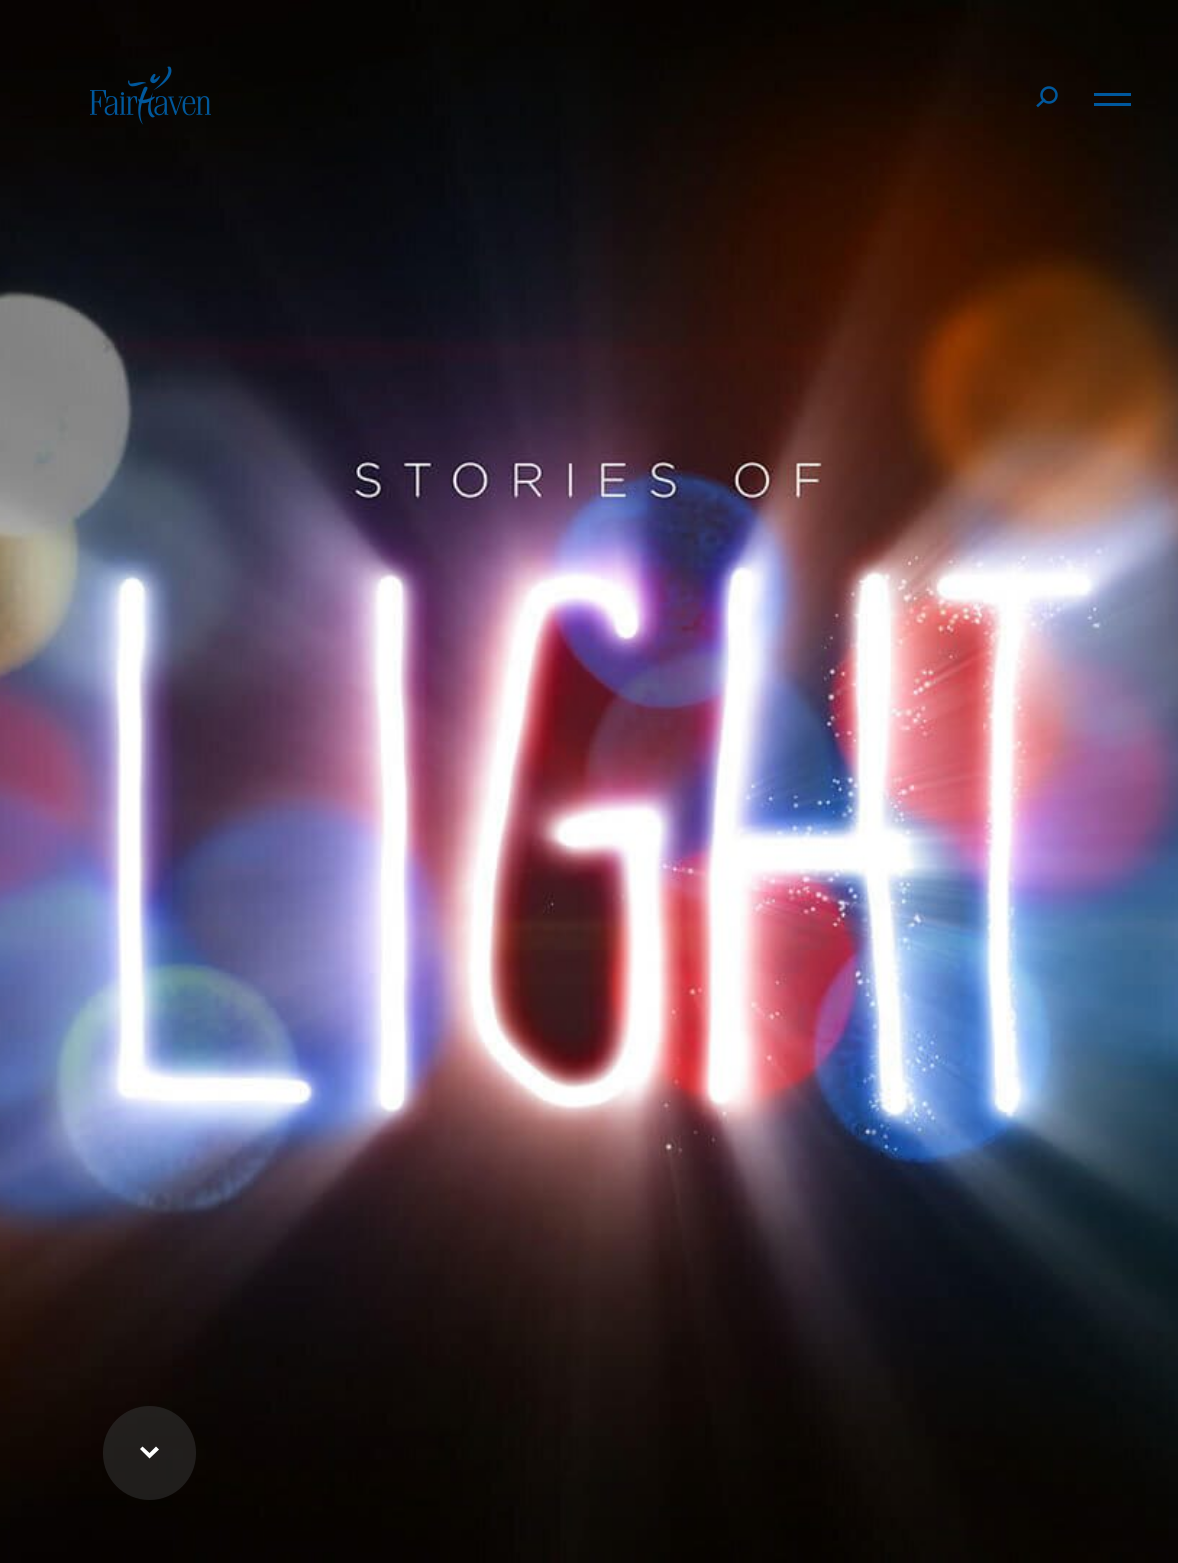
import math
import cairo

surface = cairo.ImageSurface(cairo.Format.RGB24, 1178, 1563)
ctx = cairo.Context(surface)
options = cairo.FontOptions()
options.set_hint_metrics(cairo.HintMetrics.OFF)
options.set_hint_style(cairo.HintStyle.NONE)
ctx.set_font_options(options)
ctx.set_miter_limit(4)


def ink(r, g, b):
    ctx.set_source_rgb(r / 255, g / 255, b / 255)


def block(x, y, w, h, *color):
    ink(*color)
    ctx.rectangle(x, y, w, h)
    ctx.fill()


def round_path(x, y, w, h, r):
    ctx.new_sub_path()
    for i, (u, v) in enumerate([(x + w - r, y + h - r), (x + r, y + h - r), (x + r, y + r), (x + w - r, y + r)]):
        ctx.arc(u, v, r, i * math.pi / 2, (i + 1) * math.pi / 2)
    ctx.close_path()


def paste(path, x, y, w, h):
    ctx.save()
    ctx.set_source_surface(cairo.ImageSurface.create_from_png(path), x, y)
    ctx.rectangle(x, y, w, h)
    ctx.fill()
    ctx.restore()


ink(255, 255, 255)
ctx.paint()
paste("pic1.png", 0, 0, 1178, 1563)
ctx.set_source_rgba(0.224, 0.22, 0.224, 0.5)
round_path(103, 1406, 93, 94, 46.5)
ctx.fill()
ink(255, 255, 255)
ctx.new_path()
ctx.move_to(149.5, 1458.5)
ctx.line_to(140, 1449)
ctx.line_to(142.5, 1446.5)
ctx.line_to(149.5, 1453)
ctx.line_to(156, 1446.5)
ctx.line_to(159, 1449.5)
ctx.close_path()
ctx.fill()
paste("pic2.png", 90, 66, 121, 59)
ctx.arc(1049, 95, 7.5, 0, 2 * math.pi)
ink(0, 88, 157)
ctx.set_line_width(2.5)
ctx.stroke()
ctx.new_path()
ctx.move_to(1044, 100)
ctx.line_to(1038, 105.5)
ctx.set_line_cap(cairo.LineCap.SQUARE)
ctx.stroke()
block(1094, 93, 37, 3, 0, 88, 157)
block(1094, 103, 37, 3, 0, 88, 157)
surface.write_to_png("screenshot.png")
